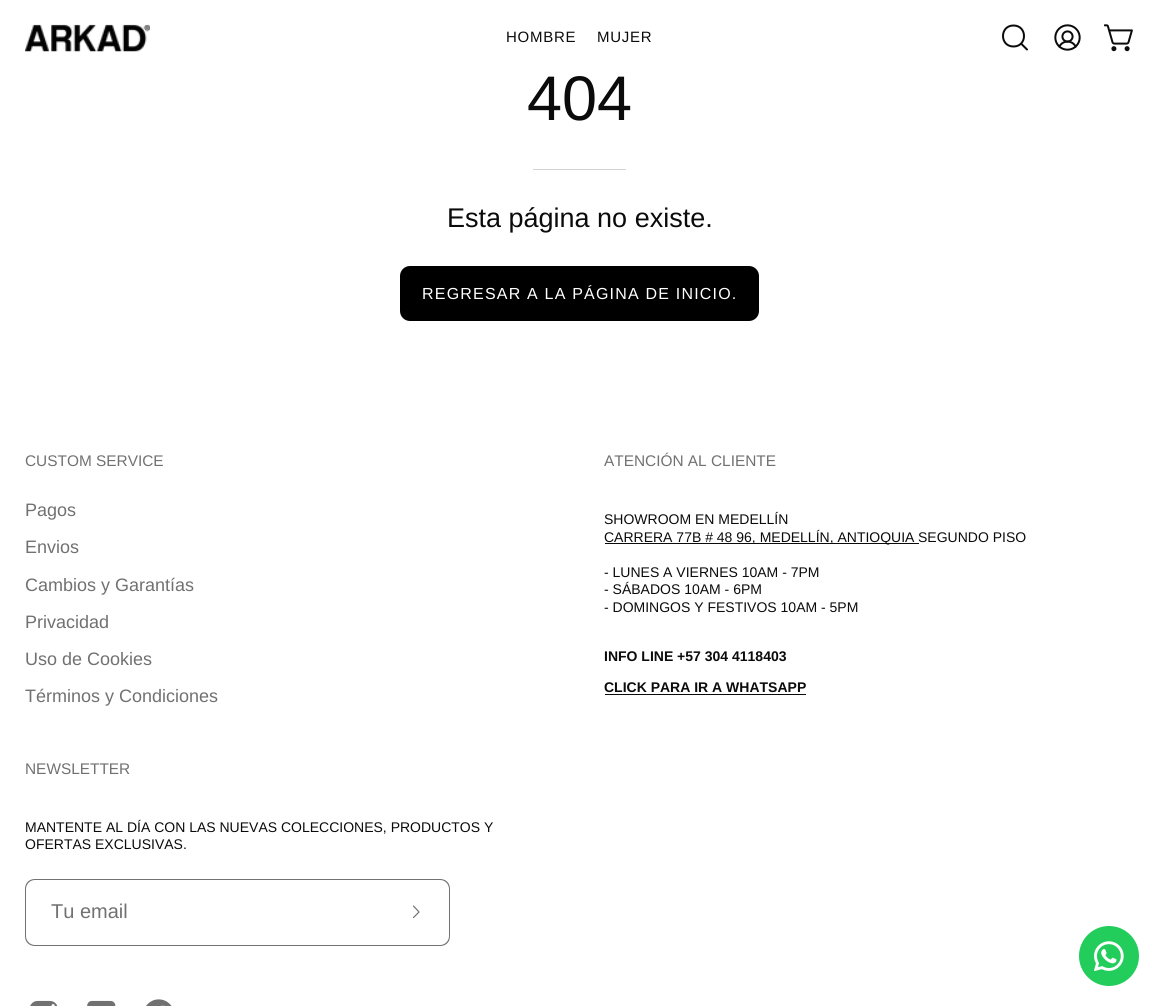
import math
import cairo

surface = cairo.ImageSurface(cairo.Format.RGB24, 1158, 1006)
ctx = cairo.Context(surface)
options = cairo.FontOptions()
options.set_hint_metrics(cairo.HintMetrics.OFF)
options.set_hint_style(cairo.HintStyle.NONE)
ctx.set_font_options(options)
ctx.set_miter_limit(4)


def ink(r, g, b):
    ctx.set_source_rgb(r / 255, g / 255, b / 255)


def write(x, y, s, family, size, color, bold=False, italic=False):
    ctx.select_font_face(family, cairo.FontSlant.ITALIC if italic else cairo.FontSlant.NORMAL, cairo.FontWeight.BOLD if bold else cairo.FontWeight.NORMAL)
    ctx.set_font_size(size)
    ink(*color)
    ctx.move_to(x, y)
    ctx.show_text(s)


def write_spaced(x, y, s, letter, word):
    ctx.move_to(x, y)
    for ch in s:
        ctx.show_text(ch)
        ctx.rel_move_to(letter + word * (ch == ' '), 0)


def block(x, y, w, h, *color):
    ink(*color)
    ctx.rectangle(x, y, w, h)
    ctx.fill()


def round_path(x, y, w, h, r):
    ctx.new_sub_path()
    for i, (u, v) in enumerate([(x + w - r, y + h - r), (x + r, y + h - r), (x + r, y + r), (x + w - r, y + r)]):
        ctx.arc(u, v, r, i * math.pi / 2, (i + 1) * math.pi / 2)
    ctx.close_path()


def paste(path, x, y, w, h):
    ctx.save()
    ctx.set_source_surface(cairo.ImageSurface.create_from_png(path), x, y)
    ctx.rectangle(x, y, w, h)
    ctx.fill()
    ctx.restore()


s1 = dict(family="Liberation Sans", size=63, color=(11, 11, 11))
s2 = dict(family="Liberation Sans", size=27, color=(11, 11, 11))
s3 = dict(family="Liberation Sans", size=15.4, color=(113, 113, 113))
s4 = dict(family="Liberation Sans", size=18, color=(113, 113, 113))
s5 = dict(family="Liberation Sans", size=14, color=(11, 11, 11))
s6 = dict(family="Liberation Sans", size=14, color=(11, 11, 11), bold=True)
s7 = dict(family="Liberation Sans", size=20, color=(113, 113, 113))

ink(255, 255, 255)
ctx.paint()
paste("pic1.png", 25, 24, 125, 28)
ctx.select_font_face("Liberation Sans")
ctx.set_font_size(15)
ink(11, 11, 11)
write_spaced(506, 42, "HOMBRE", 0.75, 0)
write_spaced(597, 42, "MUJER", 0.75, 0)
ctx.new_path()
ctx.move_to(1013.5, 46.5)
ctx.curve_to(1027.5, 46.5, 1027.5, 25.5, 1013.5, 25.5)
ctx.curve_to(999.5, 25.5, 999.5, 46.5, 1013.5, 46.5)
ctx.close_path()
ctx.move_to(1021, 43.5)
ctx.line_to(1027, 49.5)
ctx.set_line_cap(cairo.LineCap.ROUND)
ctx.set_line_join(cairo.LineJoin.ROUND)
ctx.stroke()
paste("pic2.png", 1054, 24, 27, 27)
paste("pic3.png", 1104, 24, 29, 28)
write(527, 120, "404", **s1)
block(533, 169, 93, 1, 211, 211, 211)
write(447, 227, "Esta página no existe.", **s2)
ink(0, 0, 0)
round_path(400, 266, 359, 55, 10)
ctx.fill()
ctx.set_font_size(16)
ink(255, 255, 255)
write_spaced(422, 299, "REGRESAR A LA PÁGINA DE INICIO.", 1.2, 0)
write(25, 466, "CUSTOM SERVICE", **s3)
write(25, 516, "Pagos", **s4)
write(25, 553, "Envios", **s4)
write(25, 591, "Cambios y Garantías", **s4)
write(25, 628, "Privacidad", **s4)
write(25, 665, "Uso de Cookies", **s4)
write(25, 702, "Términos y Condiciones", **s4)
write(604, 466, "ATENCIÓN AL CLIENTE", **s3)
write(604, 524, "SHOWROOM EN MEDELLÍN", **s5)
block(605, 543, 314, 1, 11, 11, 11)
write(604, 542, "CARRERA 77B # 48 96, MEDELLÍN, ANTIOQUIA", **s5)
write(918, 542, "SEGUNDO PISO", **s5)
write(604, 577, "- LUNES A VIERNES 10AM - 7PM", **s5)
write(604, 594, "- SÁBADOS 10AM - 6PM", **s5)
write(604, 612, "- DOMINGOS Y FESTIVOS 10AM - 5PM", **s5)
write(604, 661, "INFO LINE +57 304 4118403", **s6)
write(604, 692, "CLICK PARA IR A WHATSAPP", **s6)
block(605, 694, 201, 1, 11, 11, 11)
write(25, 774, "NEWSLETTER", **s3)
write(25, 832, "MANTENTE AL DÍA CON LAS NUEVAS COLECCIONES, PRODUCTOS Y", **s5)
write(25, 849, "OFERTAS EXCLUSIVAS.", **s5)
ink(113, 113, 113)
ctx.set_fill_rule(cairo.FillRule.EVEN_ODD)
ctx.new_path()
ctx.move_to(35, 879)
ctx.line_to(382, 879)
ctx.line_to(382, 946)
ctx.line_to(35, 946)
ctx.curve_to(29, 946, 25, 942, 25, 936)
ctx.line_to(25, 889)
ctx.curve_to(25, 883, 29, 879, 35, 879)
ctx.close_path()
ctx.move_to(35, 880)
ctx.line_to(382, 880)
ctx.line_to(382, 945)
ctx.line_to(35, 945)
ctx.curve_to(30, 945, 26, 941, 26, 936)
ctx.line_to(26, 889)
ctx.curve_to(26, 884, 30, 880, 35, 880)
ctx.close_path()
ctx.fill()
write(51, 918, "Tu email", **s7)
ctx.new_path()
ctx.move_to(382, 879)
ctx.line_to(440, 879)
ctx.curve_to(446, 879, 450, 883, 450, 889)
ctx.line_to(450, 936)
ctx.curve_to(450, 942, 446, 946, 440, 946)
ctx.line_to(382, 946)
ctx.close_path()
ctx.move_to(382, 880)
ctx.line_to(440, 880)
ctx.curve_to(445, 880, 449, 884, 449, 889)
ctx.line_to(449, 936)
ctx.curve_to(449, 941, 445, 945, 440, 945)
ctx.line_to(382, 945)
ctx.close_path()
ctx.fill()
ctx.new_path()
ctx.move_to(413.5, 906)
ctx.line_to(419, 912)
ctx.line_to(413.5, 917.5)
ctx.set_line_width(1.2)
ctx.stroke()
paste("pic4.png", 30, 1000, 28, 6)
paste("pic5.png", 87, 1000, 29, 6)
paste("pic6.png", 146, 999, 26, 7)
ink(34, 205, 91)
ctx.arc(1109, 956, 30, 0, 2 * math.pi)
ctx.fill()
paste("pic7.png", 1094, 941, 30, 30)
surface.write_to_png("screenshot.png")
